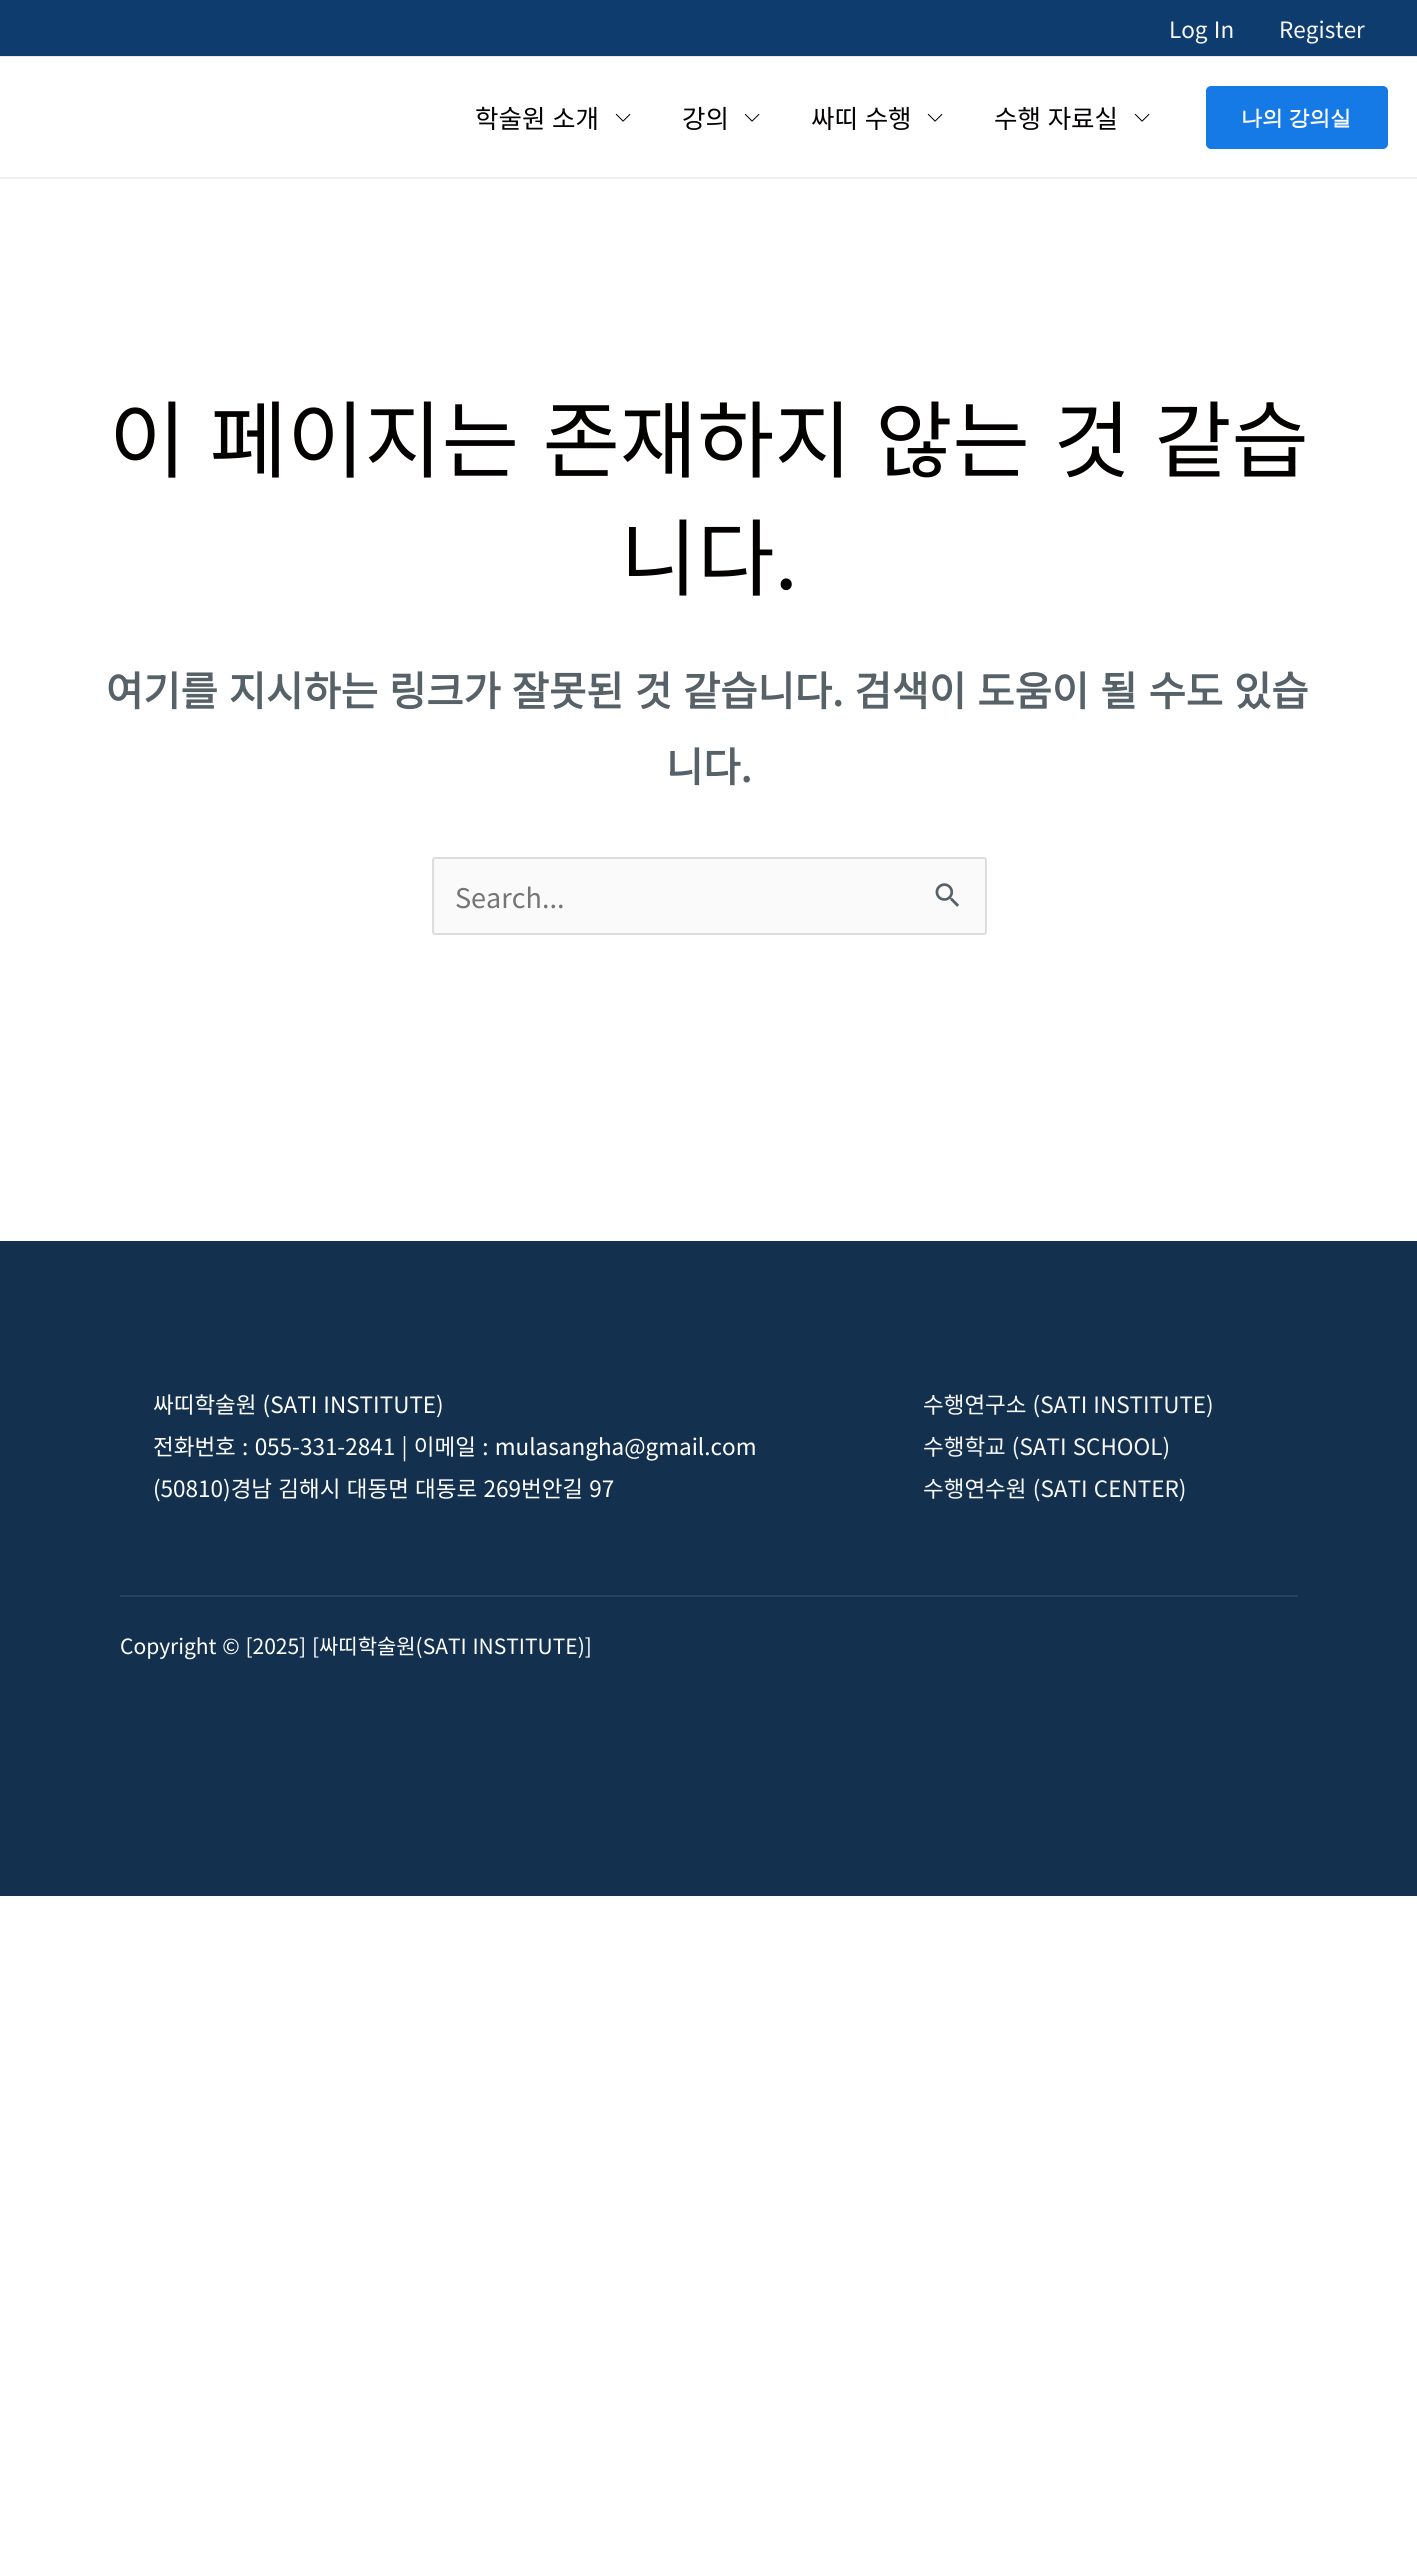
import math
import cairo

surface = cairo.ImageSurface(cairo.Format.RGB24, 1417, 2549)
ctx = cairo.Context(surface)
options = cairo.FontOptions()
options.set_hint_metrics(cairo.HintMetrics.OFF)
options.set_hint_style(cairo.HintStyle.NONE)
ctx.set_font_options(options)
ctx.set_miter_limit(4)


def ink(r, g, b):
    ctx.set_source_rgb(r / 255, g / 255, b / 255)


def write(x, y, s, family, size, color, bold=False, italic=False):
    ctx.select_font_face(family, cairo.FontSlant.ITALIC if italic else cairo.FontSlant.NORMAL, cairo.FontWeight.BOLD if bold else cairo.FontWeight.NORMAL)
    ctx.set_font_size(size)
    ink(*color)
    ctx.move_to(x, y)
    ctx.show_text(s)


def write_spaced(x, y, s, letter, word):
    ctx.move_to(x, y)
    for ch in s:
        ctx.show_text(ch)
        ctx.rel_move_to(letter + word * (ch == ' '), 0)


def block(x, y, w, h, *color):
    ink(*color)
    ctx.rectangle(x, y, w, h)
    ctx.fill()


def round_path(x, y, w, h, r):
    ctx.new_sub_path()
    for i, (u, v) in enumerate([(x + w - r, y + h - r), (x + r, y + h - r), (x + r, y + r), (x + w - r, y + r)]):
        ctx.arc(u, v, r, i * math.pi / 2, (i + 1) * math.pi / 2)
    ctx.close_path()


def paste(path, x, y, w, h):
    ctx.save()
    ctx.set_source_surface(cairo.ImageSurface.create_from_png(path), x, y)
    ctx.rectangle(x, y, w, h)
    ctx.fill()
    ctx.restore()


s1 = dict(family="Noto Sans KR Thin", size=22.5, color=(247, 247, 247))
s2 = dict(family="Noto Sans KR Thin", size=25.5, color=(3, 0, 0))
s3 = dict(family="Noto Sans KR Thin", size=84, color=(3, 0, 0))
s4 = dict(family="Noto Sans KR", size=40.5, color=(87, 97, 104), bold=True)
s5 = dict(family="Noto Sans KR Thin", size=27, color=(117, 117, 117))

ink(255, 255, 255)
ctx.paint()
block(0, 0, 1417, 56, 14, 60, 110)
block(0, 56, 1417, 1, 234, 234, 234)
ctx.select_font_face("Noto Sans KR Thin")
ctx.set_font_size(22.5)
ink(247, 247, 247)
write_spaced(1169, 38, "Log In", 0, 1.25)
write(1279, 38, "Register", **s1)
block(0, 177, 1417, 2, 240, 240, 240)
ctx.set_font_size(25.5)
ink(3, 0, 0)
write_spaced(475, 128, "학술원 소개", 0, 1)
paste("pic1.png", 615, 113, 16, 9)
write(682, 128, "강의", **s2)
paste("pic1.png", 744, 113, 16, 9)
write_spaced(811, 128, "싸띠 수행", 0, 1)
paste("pic1.png", 927, 113, 16, 9)
write_spaced(994, 128, "수행 자료실", 0, 1)
paste("pic1.png", 1134, 113, 16, 9)
ink(21, 121, 230)
round_path(1206, 86, 182, 63, 5)
ctx.fill()
ctx.select_font_face("WenQuanYi Zen Hei", cairo.FontSlant.NORMAL, cairo.FontWeight.BOLD)
ctx.set_font_size(21)
ink(255, 255, 255)
write_spaced(1241, 125, "나의 강의실", 0, -1)
ctx.select_font_face("Noto Sans KR Thin")
ctx.set_font_size(84)
ink(3, 0, 0)
write_spaced(109, 471, "이 페이지는 존재하지 않는 것 같습", 0, 4.75)
write(620, 589, "니다.", **s3)
ctx.select_font_face("Noto Sans KR", cairo.FontSlant.NORMAL, cairo.FontWeight.BOLD)
ctx.set_font_size(40.5)
ink(87, 97, 104)
write_spaced(106, 706, "여기를 지시하는 링크가 잘못된 것 같습니다. 검색이 도움이 될 수도 있습", 0, 2)
write(666, 782, "니다.", **s4)
ink(250, 250, 250)
round_path(433, 858, 553, 76, 2)
ctx.fill_preserve()
ink(221, 221, 221)
ctx.stroke()
write(455, 908, "Search...", **s5)
paste("pic2.png", 935, 883, 24, 24)
block(0, 1241, 1417, 655, 19, 49, 79)
ctx.set_font_size(22.5)
ink(255, 255, 255)
write_spaced(153, 1413, "싸띠학술원 (SATI INSTITUTE)", 0, 1)
write_spaced(153, 1455, "전화번호 : 055-331-2841 | 이메일 : mulasangha@gmail.com", 0, 1.25)
write_spaced(153, 1497, "(50810)경남 김해시 대동면 대동로 269번안길 97", 0, 1.25)
ink(247, 247, 247)
write_spaced(923, 1413, "수행연구소 (SATI INSTITUTE)", 0, 1)
write_spaced(923, 1455, "수행학교 (SATI SCHOOL)", 0, 1)
write_spaced(923, 1497, "수행연수원 (SATI CENTER)", 0, 1.25)
block(120, 1595, 1178, 2, 38, 65, 92)
ctx.set_font_size(21)
ink(255, 255, 255)
write_spaced(120, 1654, "Copyright © [2025] [싸띠학술원(SATI INSTITUTE)]", 0, 1)
surface.write_to_png("screenshot.png")
